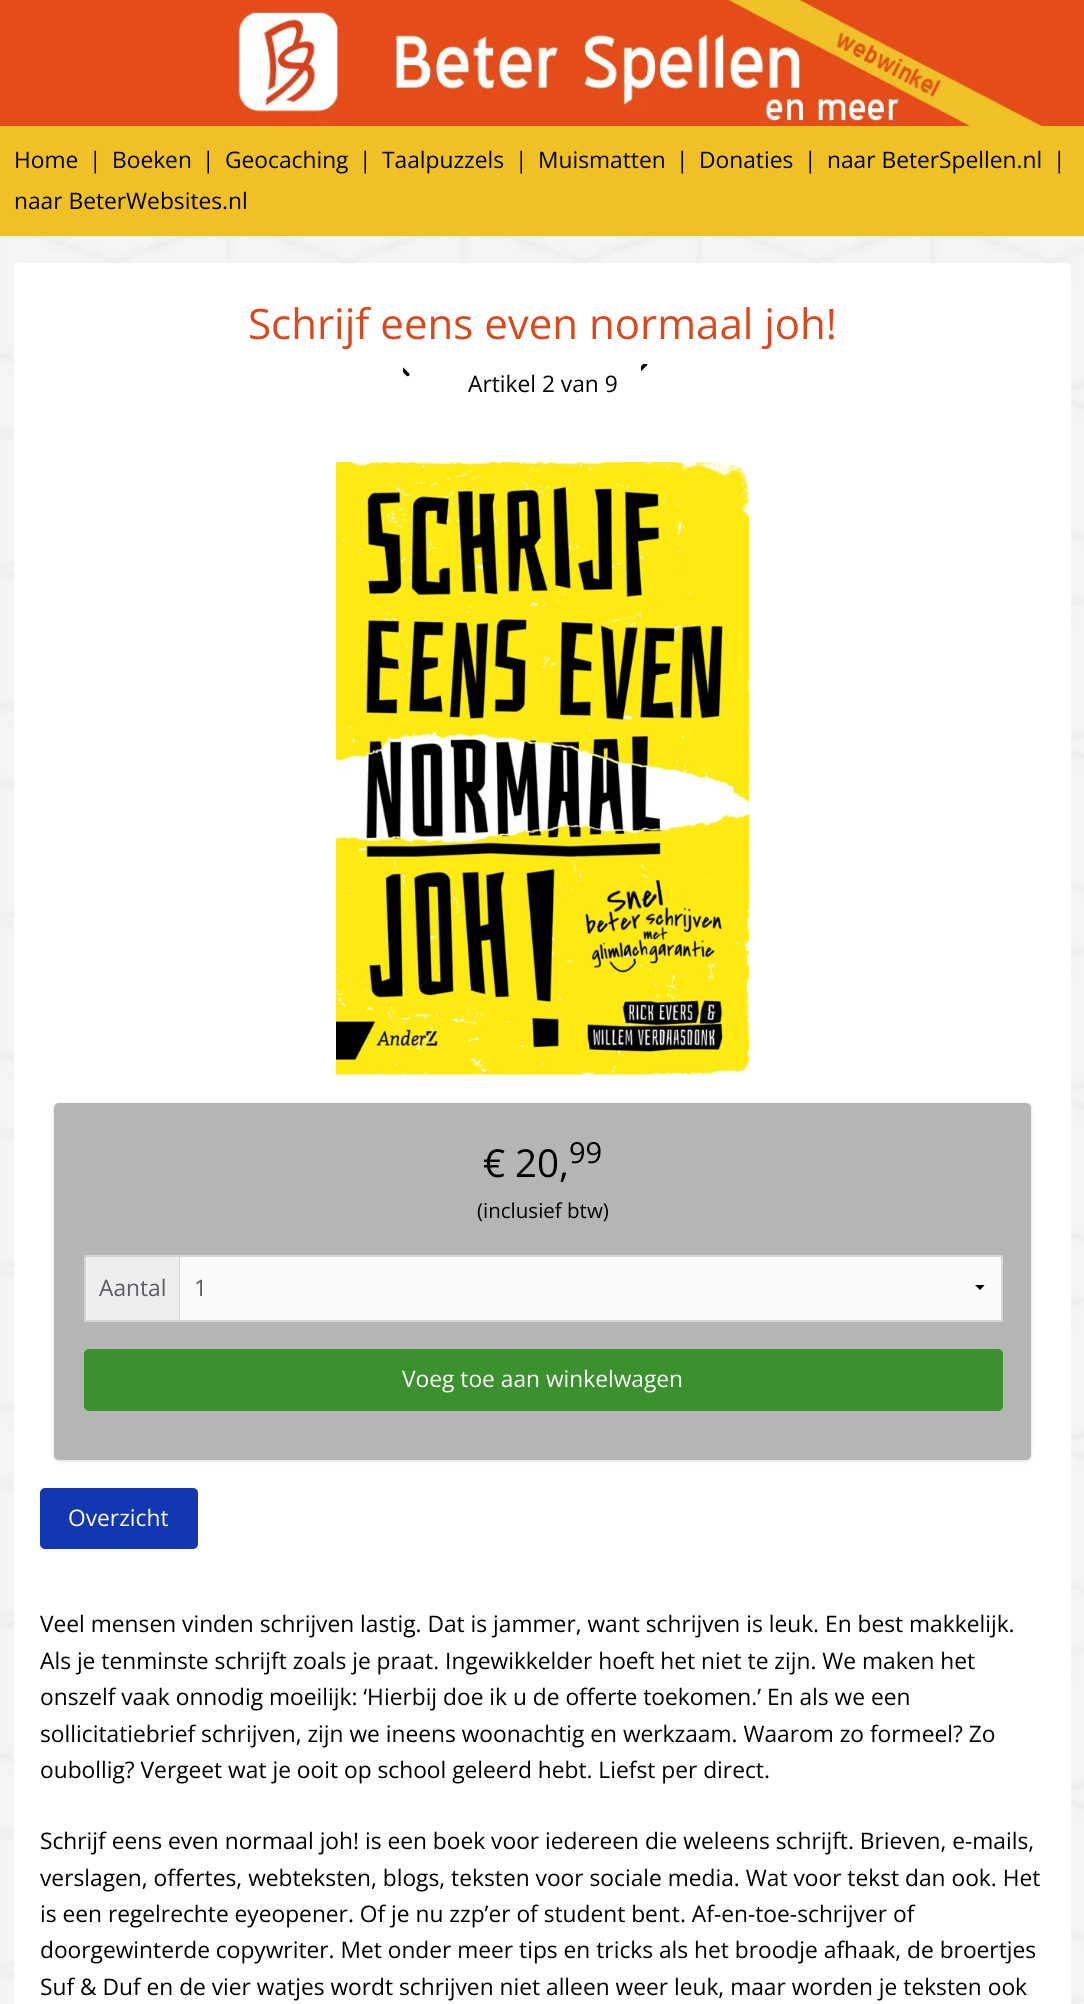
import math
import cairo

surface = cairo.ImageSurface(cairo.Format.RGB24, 1084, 2004)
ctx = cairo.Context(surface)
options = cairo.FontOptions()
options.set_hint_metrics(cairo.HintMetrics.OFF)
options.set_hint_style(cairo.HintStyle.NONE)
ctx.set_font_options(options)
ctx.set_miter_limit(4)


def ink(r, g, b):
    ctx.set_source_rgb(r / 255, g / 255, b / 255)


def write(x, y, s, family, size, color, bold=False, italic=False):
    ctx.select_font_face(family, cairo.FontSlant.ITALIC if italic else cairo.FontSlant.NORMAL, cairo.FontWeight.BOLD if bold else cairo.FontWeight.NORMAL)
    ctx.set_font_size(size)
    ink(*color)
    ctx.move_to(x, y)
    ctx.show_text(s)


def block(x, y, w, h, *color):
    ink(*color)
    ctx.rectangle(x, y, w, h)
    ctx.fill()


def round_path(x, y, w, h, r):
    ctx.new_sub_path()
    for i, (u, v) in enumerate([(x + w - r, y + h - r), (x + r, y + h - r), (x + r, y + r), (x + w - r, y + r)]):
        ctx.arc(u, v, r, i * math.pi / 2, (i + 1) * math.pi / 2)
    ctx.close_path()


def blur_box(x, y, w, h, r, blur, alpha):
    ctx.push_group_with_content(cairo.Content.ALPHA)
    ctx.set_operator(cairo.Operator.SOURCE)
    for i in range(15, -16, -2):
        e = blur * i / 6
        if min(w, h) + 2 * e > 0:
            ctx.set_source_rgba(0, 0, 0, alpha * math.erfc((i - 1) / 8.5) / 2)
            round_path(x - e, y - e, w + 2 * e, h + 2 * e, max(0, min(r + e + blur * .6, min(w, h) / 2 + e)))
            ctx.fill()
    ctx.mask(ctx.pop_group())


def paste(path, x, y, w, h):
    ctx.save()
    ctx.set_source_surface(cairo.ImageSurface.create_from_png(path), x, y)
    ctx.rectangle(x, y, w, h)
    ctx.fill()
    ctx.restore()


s1 = dict(family="Open Sans", size=22.75, color=(0, 0, 0))
s2 = dict(family="Open Sans", size=42, color=(216, 74, 29))
s3 = dict(family="Open Sans", size=38.5, color=(0, 0, 0))
s4 = dict(family="Open Sans", size=29, color=(0, 0, 0))
s5 = dict(family="Open Sans", size=20.5, color=(0, 0, 0))
s6 = dict(family="Open Sans", size=22.75, color=(87, 91, 98))
s7 = dict(family="Open Sans", size=22.75, color=(255, 255, 255))

ink(255, 255, 255)
ctx.paint()
paste("pic1.png", 0, 0, 1084, 126)
block(0, 126, 1084, 110, 239, 193, 39)
write(14, 168, "Home", **s1)
write(89, 168, "|", **s1)
write(112, 168, "Boeken", **s1)
write(202, 168, "|", **s1)
write(225, 168, "Geocaching", **s1)
write(359, 168, "|", **s1)
write(382, 168, "Taalpuzzels", **s1)
write(515, 168, "|", **s1)
write(538, 168, "Muismatten", **s1)
write(676, 168, "|", **s1)
write(699, 168, "Donaties", **s1)
write(804, 168, "|", **s1)
write(827, 168, "naar BeterSpellen.nl", **s1)
write(1053, 168, "|", **s1)
write(14, 209, "naar BeterWebsites.nl", **s1)
paste("pic2.png", 0, 236, 1084, 1768)
ink(255, 255, 255)
round_path(14, 263, 1057, 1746, 5)
ctx.fill()
write(248, 339, "Schrijf eens even normaal joh!", **s2)
paste("pic3.png", 403, 367, 7, 10)
paste("pic4.png", 641, 364, 7, 8)
write(468, 392, "Artikel 2 van 9", **s1)
paste("pic5.png", 336, 462, 413, 613)
ink(0, 0, 0)
blur_box(54, 1104, 977, 357, 5, 2, 0.15)
ink(181, 181, 181)
round_path(54, 1103, 977, 357, 5)
ctx.fill()
write(483, 1177, "€ 20,", **s3)
write(569, 1163, "99", **s4)
write(477, 1218, "(inclusief btw)", **s5)
block(179, 1255, 1, 65, 211, 213, 217)
block(84, 1255, 919, 2, 211, 213, 217)
block(1001, 1255, 2, 66, 211, 213, 217)
block(84, 1320, 919, 2, 211, 213, 217)
block(84, 1255, 2, 66, 211, 213, 217)
block(86, 1257, 93, 63, 238, 238, 238)
write(99, 1296, "Aantal", **s6)
block(180, 1257, 821, 63, 250, 250, 250)
ctx.save()
ctx.rectangle(959, 1285, 42, 5)
ctx.clip()
ink(0, 0, 0)
ctx.new_path()
ctx.move_to(985, 1284.5)
ctx.line_to(980, 1290)
ctx.line_to(974.5, 1284.5)
ctx.close_path()
ctx.fill()
ctx.restore()
write(194, 1296, "1", **s6)
ink(59, 145, 46)
round_path(84, 1349, 919, 62, 5)
ctx.fill()
write(402, 1387, "Voeg toe aan winkelwagen", **s7)
ink(18, 55, 176)
round_path(40, 1488, 158, 61, 5)
ctx.fill()
write(68, 1526, "Overzicht", **s7)
write(40, 1632, "Veel mensen vinden schrijven lastig. Dat is jammer, want schrijven is leuk. En best makkelijk.", **s1)
write(40, 1669, "Als je tenminste schrijft zoals je praat. Ingewikkelder hoeft het niet te zijn. We maken het", **s1)
write(40, 1705, "onszelf vaak onnodig moeilijk: ‘Hierbij doe ik u de offerte toekomen.’ En als we een", **s1)
write(40, 1742, "sollicitatiebrief schrijven, zijn we ineens woonachtig en werkzaam. Waarom zo formeel? Zo", **s1)
write(40, 1778, "oubollig? Vergeet wat je ooit op school geleerd hebt. Liefst per direct.", **s1)
write(40, 1849, "Schrijf eens even normaal joh! is een boek voor iedereen die weleens schrijft. Brieven, e-mails,", **s1)
write(40, 1886, "verslagen, offertes, webteksten, blogs, teksten voor sociale media. Wat voor tekst dan ook. Het", **s1)
write(40, 1922, "is een regelrechte eyeopener. Of je nu zzp’er of student bent. Af-en-toe-schrijver of", **s1)
write(40, 1958, "doorgewinterde copywriter. Met onder meer tips en tricks als het broodje afhaak, de broertjes", **s1)
write(40, 1995, "Suf & Duf en de vier watjes wordt schrijven niet alleen weer leuk, maar worden je teksten ook", **s1)
surface.write_to_png("screenshot.png")
